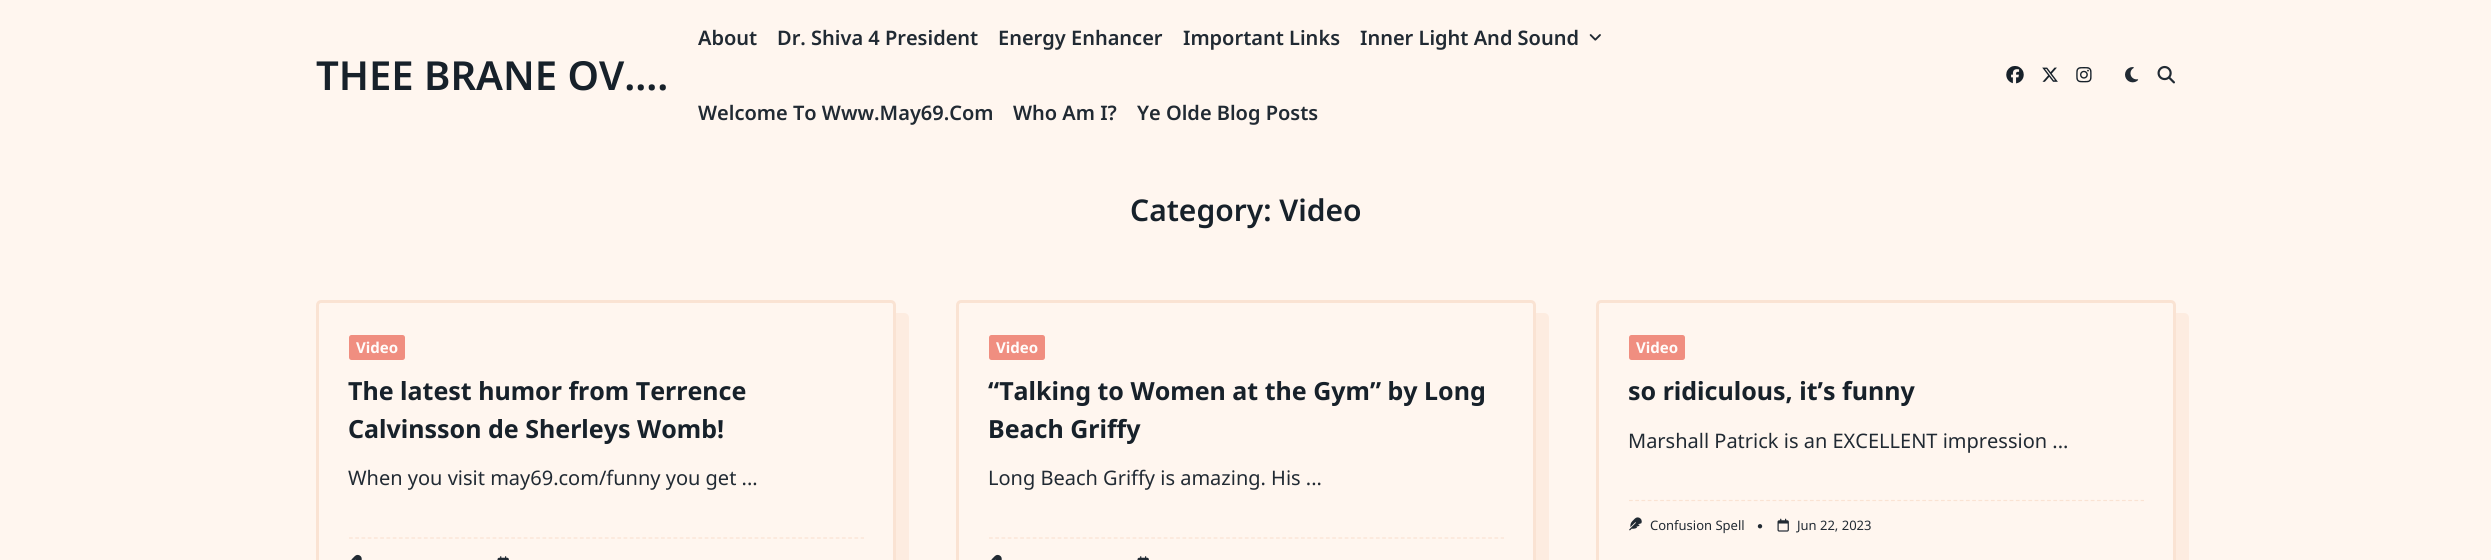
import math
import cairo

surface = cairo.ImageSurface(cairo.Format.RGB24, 2491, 560)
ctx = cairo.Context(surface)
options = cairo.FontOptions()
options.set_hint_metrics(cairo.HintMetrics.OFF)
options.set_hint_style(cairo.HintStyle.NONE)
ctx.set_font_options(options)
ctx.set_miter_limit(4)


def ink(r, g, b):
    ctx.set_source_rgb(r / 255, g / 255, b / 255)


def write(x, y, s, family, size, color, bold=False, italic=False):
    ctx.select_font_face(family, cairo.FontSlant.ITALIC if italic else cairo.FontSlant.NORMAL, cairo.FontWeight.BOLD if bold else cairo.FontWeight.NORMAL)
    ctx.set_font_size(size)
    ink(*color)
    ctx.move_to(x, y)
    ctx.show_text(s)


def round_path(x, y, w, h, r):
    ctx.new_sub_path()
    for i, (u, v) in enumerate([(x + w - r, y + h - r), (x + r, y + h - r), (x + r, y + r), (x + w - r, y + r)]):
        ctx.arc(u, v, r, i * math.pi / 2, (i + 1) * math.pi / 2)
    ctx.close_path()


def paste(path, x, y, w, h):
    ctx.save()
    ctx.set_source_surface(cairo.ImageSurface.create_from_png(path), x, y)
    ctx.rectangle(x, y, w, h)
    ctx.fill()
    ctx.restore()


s1 = dict(family="Noto Sans SemiBold", size=40, color=(23, 33, 42))
s2 = dict(family="Noto Sans SemiBold", size=20, color=(33, 42, 51))
s3 = dict(family="Noto Sans SemiBold", size=30, color=(23, 33, 42))
s4 = dict(family="Noto Sans", size=15, color=(255, 252, 250), bold=True)
s5 = dict(family="Noto Sans", size=25, color=(23, 33, 42), bold=True)
s6 = dict(family="Noto Sans", size=20, color=(33, 42, 51))
s7 = dict(family="Noto Sans", size=13, color=(33, 42, 51))

ink(255, 246, 239)
ctx.paint()
write(316, 90, "THEE BRANE OV....", **s1)
write(698, 45, "About", **s2)
write(777, 45, "Dr. Shiva 4 President", **s2)
write(998, 45, "Energy Enhancer", **s2)
write(1183, 45, "Important Links", **s2)
write(1360, 45, "Inner Light And Sound", **s2)
paste("pic1.png", 1589, 34, 12, 7)
write(698, 120, "Welcome To Www.May69.Com", **s2)
write(1013, 120, "Who Am I?", **s2)
write(1137, 120, "Ye Olde Blog Posts", **s2)
paste("pic2.png", 2006, 66, 18, 18)
paste("pic3.png", 2042, 67, 16, 15)
paste("pic4.png", 2076, 67, 16, 16)
paste("pic5.png", 2125, 67, 14, 16)
paste("pic6.png", 2157, 65, 18, 19)
write(1130, 221, "Category: Video", **s3)
ink(253, 236, 224)
ctx.new_path()
ctx.move_to(329, 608)
ctx.line_to(329, 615)
ctx.curve_to(329, 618, 331, 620, 334, 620)
ctx.line_to(904, 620)
ctx.curve_to(907, 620, 909, 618, 909, 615)
ctx.line_to(909, 318)
ctx.curve_to(909, 315, 907, 313, 904, 313)
ctx.line_to(896, 313)
ctx.line_to(896, 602)
ctx.curve_to(896, 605, 894, 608, 891, 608)
ctx.close_path()
ctx.fill()
round_path(317.5, 301.5, 577, 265, 3.5)
ink(250, 227, 211)
ctx.set_line_width(3)
ctx.stroke()
ink(240, 142, 128)
round_path(349, 335, 56, 25, 2.5)
ctx.fill()
write(356, 353, "Video", **s4)
write(348, 400, "The latest humor from Terrence", **s5)
write(348, 438, "Calvinsson de Sherleys Womb!", **s5)
write(348, 485, "When you visit may69.com/funny you get ...", **s6)
ctx.new_path()
ctx.move_to(349, 538)
ctx.line_to(864, 538)
ink(250, 227, 211)
ctx.set_line_width(1.2)
ctx.set_dash([3.75, 2.49])
ctx.stroke()
paste("pic7.png", 351, 554, 11, 6)
paste("pic8.png", 497, 556, 12, 4)
ink(253, 236, 224)
ctx.new_path()
ctx.move_to(969, 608)
ctx.line_to(969, 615)
ctx.curve_to(969, 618, 971, 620, 974, 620)
ctx.line_to(1544, 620)
ctx.curve_to(1547, 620, 1549, 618, 1549, 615)
ctx.line_to(1549, 318)
ctx.curve_to(1549, 315, 1547, 313, 1544, 313)
ctx.line_to(1536, 313)
ctx.line_to(1536, 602)
ctx.curve_to(1536, 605, 1534, 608, 1531, 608)
ctx.close_path()
ctx.fill()
round_path(957.5, 301.5, 577, 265, 3.5)
ink(250, 227, 211)
ctx.set_line_width(3)
ctx.set_dash([])
ctx.stroke()
ink(240, 142, 128)
round_path(989, 335, 56, 25, 2.5)
ctx.fill()
write(996, 353, "Video", **s4)
write(988, 400, "“Talking to Women at the Gym” by Long", **s5)
write(988, 438, "Beach Griffy", **s5)
write(988, 485, "Long Beach Griffy is amazing. His ...", **s6)
ctx.new_path()
ctx.move_to(989, 538)
ctx.line_to(1504, 538)
ink(250, 227, 211)
ctx.set_line_width(1.2)
ctx.set_dash([3.75, 2.49])
ctx.stroke()
paste("pic7.png", 991, 554, 11, 6)
paste("pic8.png", 1137, 556, 12, 4)
ink(253, 236, 224)
ctx.new_path()
ctx.move_to(1609, 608)
ctx.line_to(1609, 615)
ctx.curve_to(1609, 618, 1611, 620, 1614, 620)
ctx.line_to(2184, 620)
ctx.curve_to(2187, 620, 2189, 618, 2189, 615)
ctx.line_to(2189, 318)
ctx.curve_to(2189, 315, 2187, 313, 2184, 313)
ctx.line_to(2176, 313)
ctx.line_to(2176, 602)
ctx.curve_to(2176, 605, 2174, 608, 2171, 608)
ctx.close_path()
ctx.fill()
round_path(1597.5, 301.5, 577, 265, 3.5)
ink(250, 227, 211)
ctx.set_line_width(3)
ctx.set_dash([])
ctx.stroke()
ink(240, 142, 128)
round_path(1629, 335, 56, 25, 2.5)
ctx.fill()
write(1636, 353, "Video", **s4)
write(1628, 400, "so ridiculous, it’s funny", **s5)
write(1628, 448, "Marshall Patrick is an EXCELLENT impression ...", **s6)
ctx.new_path()
ctx.move_to(1629, 500.5)
ctx.line_to(2144, 500.5)
ink(250, 227, 211)
ctx.set_line_width(1.2)
ctx.set_dash([3.75, 2.49])
ctx.stroke()
paste("pic9.png", 1629, 517, 13, 14)
write(1650, 530, "Confusion Spell", **s7)
paste("pic10.png", 1757, 524, 6, 5)
paste("pic11.png", 1777, 518, 12, 14)
write(1797, 530, "Jun 22, 2023", **s7)
surface.write_to_png("screenshot.png")
